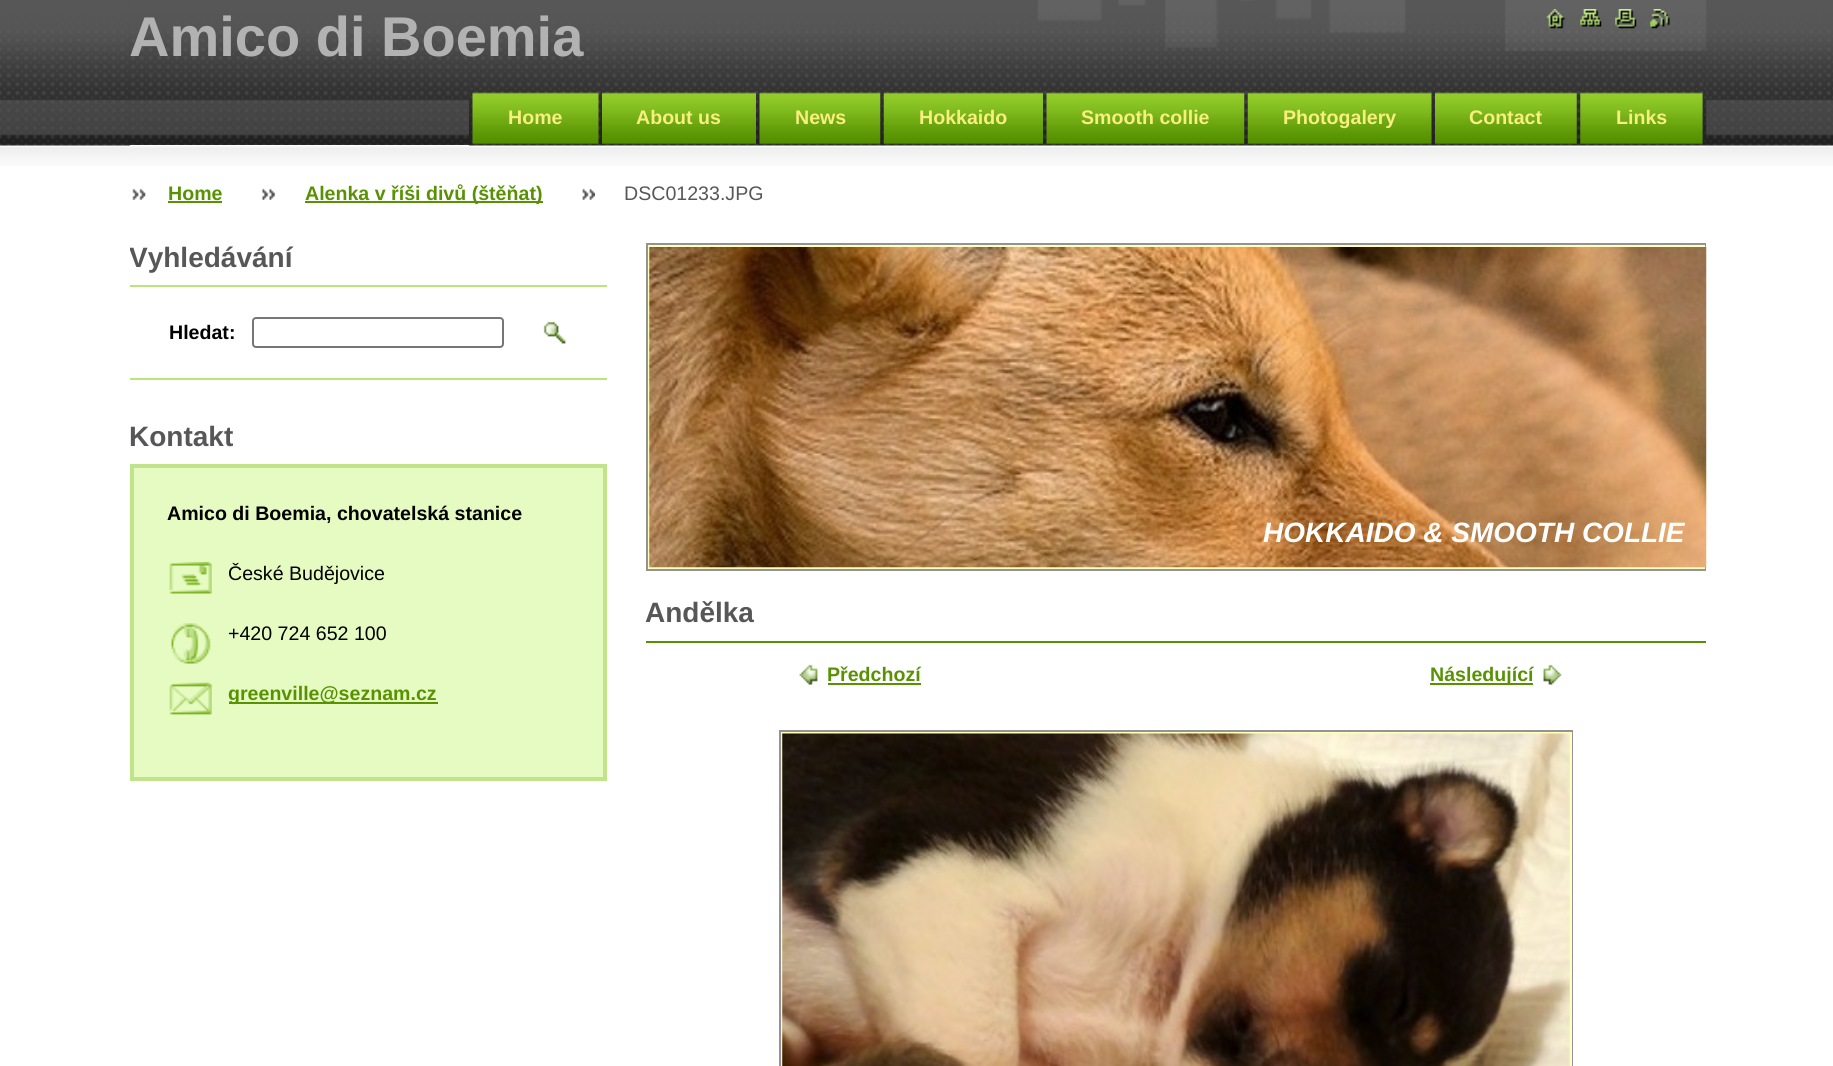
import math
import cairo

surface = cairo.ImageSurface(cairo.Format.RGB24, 1833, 1066)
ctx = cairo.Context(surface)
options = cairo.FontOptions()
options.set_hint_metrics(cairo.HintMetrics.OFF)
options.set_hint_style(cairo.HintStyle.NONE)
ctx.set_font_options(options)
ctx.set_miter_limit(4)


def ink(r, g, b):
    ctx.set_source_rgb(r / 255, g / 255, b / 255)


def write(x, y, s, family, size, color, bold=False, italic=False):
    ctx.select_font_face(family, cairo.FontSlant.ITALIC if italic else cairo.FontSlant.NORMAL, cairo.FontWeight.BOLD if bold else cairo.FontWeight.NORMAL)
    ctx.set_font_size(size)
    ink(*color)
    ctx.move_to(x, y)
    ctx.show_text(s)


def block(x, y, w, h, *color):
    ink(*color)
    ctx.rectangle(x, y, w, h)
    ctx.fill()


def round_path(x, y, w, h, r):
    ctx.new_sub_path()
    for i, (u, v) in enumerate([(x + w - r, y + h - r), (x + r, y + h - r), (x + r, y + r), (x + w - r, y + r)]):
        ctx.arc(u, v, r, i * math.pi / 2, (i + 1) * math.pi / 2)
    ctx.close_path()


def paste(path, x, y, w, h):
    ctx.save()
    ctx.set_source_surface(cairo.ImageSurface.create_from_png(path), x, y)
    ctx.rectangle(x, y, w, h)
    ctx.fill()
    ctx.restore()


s1 = dict(family="Liberation Sans", size=56, color=(178, 178, 178), bold=True)
s2 = dict(family="Liberation Sans", size=19.6, color=(249, 239, 127), bold=True)
s3 = dict(family="Liberation Sans", size=19.6, color=(88, 146, 3), bold=True)
s4 = dict(family="Liberation Sans", size=19.6, color=(87, 87, 87))
s5 = dict(family="Liberation Sans", size=28, color=(87, 87, 87), bold=True)
s6 = dict(family="Liberation Sans", size=19.6, color=(0, 0, 0), bold=True)
s7 = dict(family="Liberation Sans", size=19.6, color=(0, 0, 0))
s8 = dict(family="Liberation Sans", size=28, color=(255, 255, 255), bold=True, italic=True)

ink(255, 255, 255)
ctx.paint()
paste("pic1.png", 0, 0, 1833, 166)
paste("pic2.png", 129, 0, 1578, 146)
write(129, 56, "Amico di Boemia", **s1)
paste("pic3.png", 1546, 9, 19, 20)
paste("pic4.png", 1580, 9, 22, 18)
paste("pic5.png", 1615, 9, 22, 20)
paste("pic6.png", 1650, 9, 20, 20)
block(130, 145, 1576, 21, 255, 255, 255)
paste("pic16.png", 129, 145, 1578, 21)
paste("pic7.png", 469, 82, 1238, 65)
paste("pic8.png", 472, 92, 127, 53)
write(508, 124, "Home", **s2)
paste("pic9.png", 602, 92, 154, 53)
write(636, 124, "About us", **s2)
paste("pic10.png", 759, 92, 122, 53)
write(795, 124, "News", **s2)
paste("pic11.png", 883, 92, 160, 53)
write(919, 124, "Hokkaido", **s2)
paste("pic12.png", 1046, 92, 199, 53)
write(1081, 124, "Smooth collie", **s2)
paste("pic13.png", 1247, 92, 185, 53)
write(1283, 124, "Photogalery", **s2)
paste("pic14.png", 1435, 92, 142, 53)
write(1469, 124, "Contact", **s2)
paste("pic15.png", 1580, 92, 123, 53)
write(1616, 124, "Links", **s2)
paste("pic17.png", 132, 188, 14, 12)
write(168, 200, "Home", **s3)
block(168, 201, 54, 2, 88, 146, 3)
paste("pic18.png", 262, 188, 13, 12)
block(305, 201, 238, 2, 88, 146, 3)
write(305, 200, "Alenka v říši divů (štěňat)", **s3)
paste("pic19.png", 582, 188, 13, 12)
write(624, 200, "DSC01233.JPG", **s4)
ctx.save()
ctx.rectangle(130, 243, 477, 580)
ctx.clip()
write(129, 267, "Vyhledávání", **s5)
ctx.restore()
block(130, 285, 477, 2, 188, 227, 124)
block(130, 378, 477, 2, 188, 227, 124)
write(169, 339, "Hledat:", **s6)
round_path(253, 318, 250, 29, 3)
ink(118, 118, 118)
ctx.stroke()
paste("pic20.png", 543, 321, 23, 23)
write(129, 446, "Kontakt", **s5)
ink(230, 251, 194)
ctx.rectangle(132, 466, 473, 313)
ctx.fill_preserve()
ink(193, 228, 138)
ctx.set_line_width(4)
ctx.stroke()
write(167, 520, "Amico di Boemia, chovatelská stanice", **s6)
paste("pic21.png", 169, 562, 43, 32)
write(228, 580, "České Budějovice", **s7)
paste("pic22.png", 171, 623, 40, 41)
write(228, 640, "+420 724 652 100", **s7)
paste("pic23.png", 169, 682, 43, 33)
block(229, 702, 209, 2, 88, 146, 3)
write(228, 700, "greenville@seznam.cz", **s3)
ctx.rectangle(647, 244, 1058, 326)
ink(147, 147, 147)
ctx.set_line_width(2)
ctx.stroke()
ctx.rectangle(649, 246, 1055, 322)
ink(255, 255, 190)
ctx.stroke()
paste("pic24.png", 649, 247, 1058, 321)
write(1263, 542, "HOKKAIDO & SMOOTH COLLIE", **s8)
write(645, 622, "Andělka", **s5)
block(646, 641, 1060, 2, 86, 145, 2)
paste("pic25.png", 799, 664, 19, 21)
write(827, 681, "Předchozí", **s3)
block(828, 683, 93, 2, 88, 146, 3)
block(1430, 683, 103, 2, 88, 146, 3)
write(1430, 681, "Následující", **s3)
paste("pic26.png", 1543, 664, 19, 21)
ctx.rectangle(780, 731, 792, 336)
ink(148, 148, 150)
ctx.stroke()
ctx.rectangle(782, 733, 789, 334)
ink(255, 255, 190)
ctx.stroke()
paste("pic27.png", 782, 733, 788, 333)
surface.write_to_png("screenshot.png")
